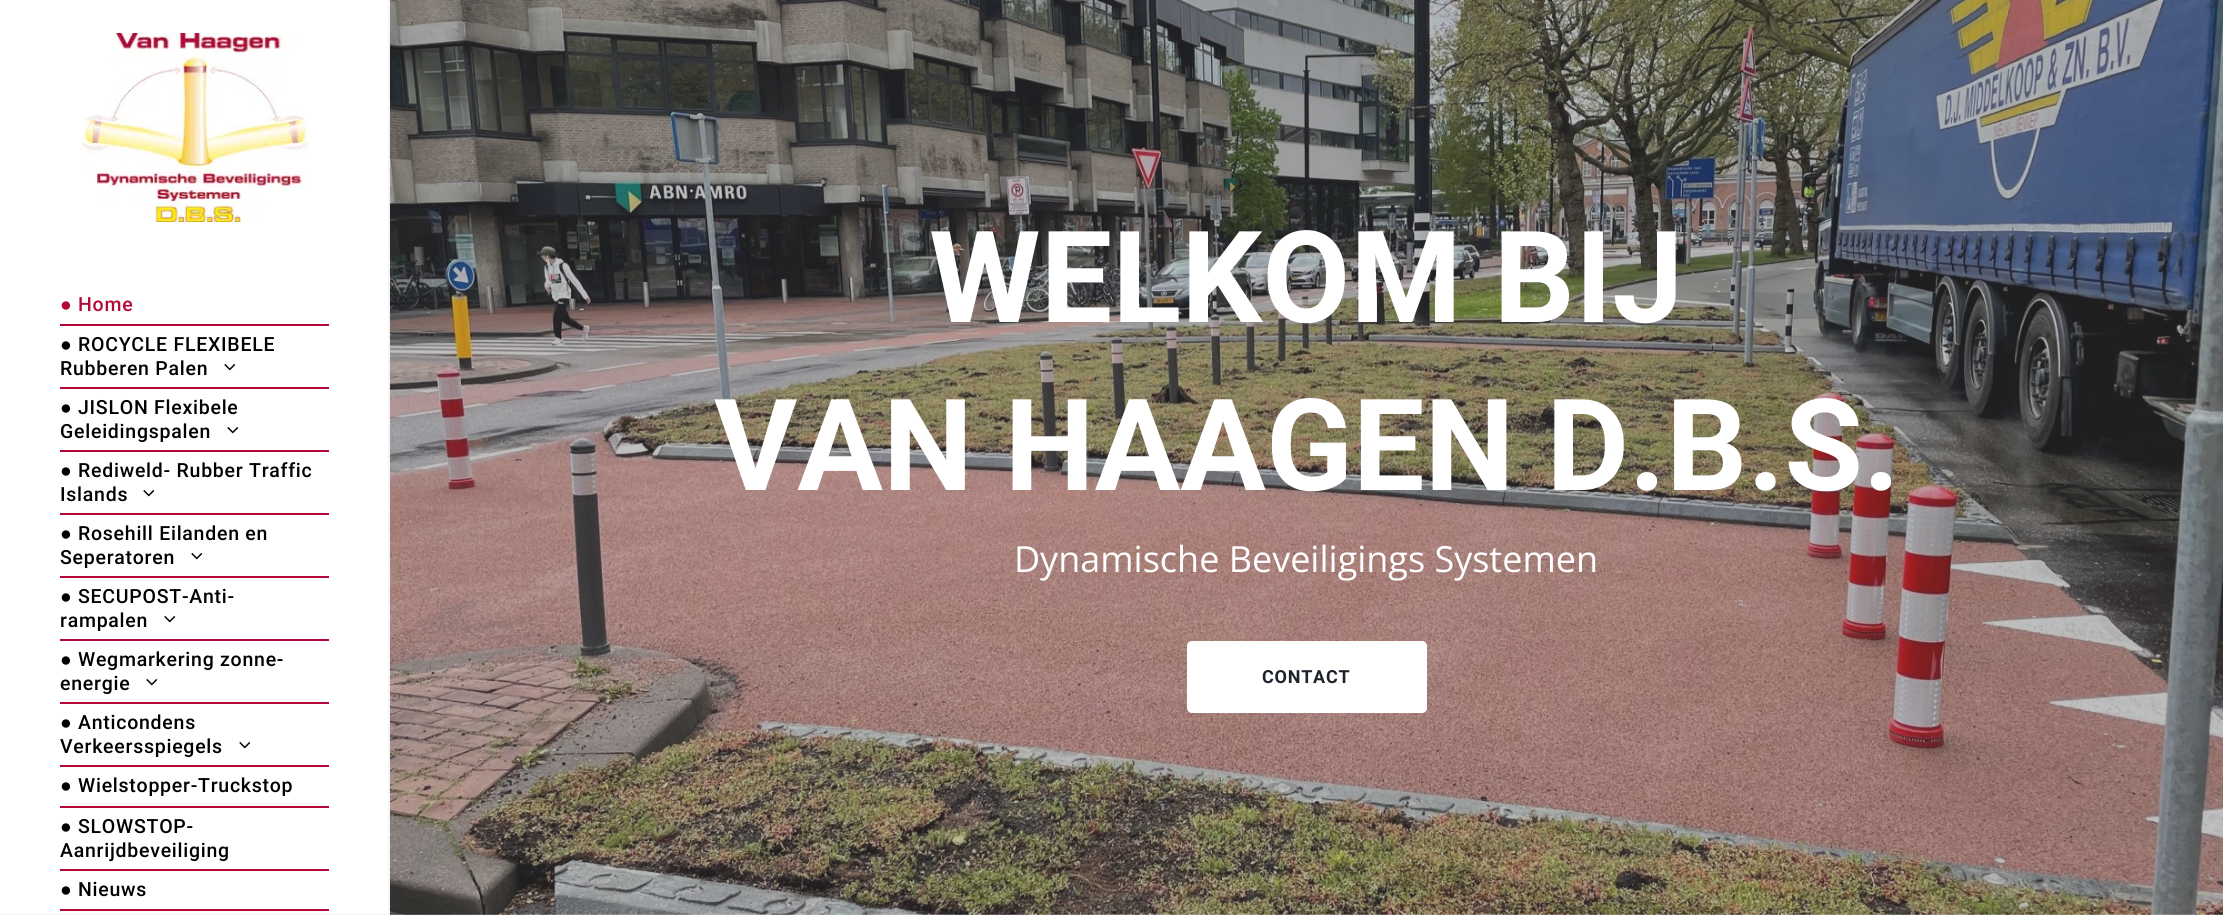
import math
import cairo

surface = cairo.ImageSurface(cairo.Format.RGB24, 2223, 915)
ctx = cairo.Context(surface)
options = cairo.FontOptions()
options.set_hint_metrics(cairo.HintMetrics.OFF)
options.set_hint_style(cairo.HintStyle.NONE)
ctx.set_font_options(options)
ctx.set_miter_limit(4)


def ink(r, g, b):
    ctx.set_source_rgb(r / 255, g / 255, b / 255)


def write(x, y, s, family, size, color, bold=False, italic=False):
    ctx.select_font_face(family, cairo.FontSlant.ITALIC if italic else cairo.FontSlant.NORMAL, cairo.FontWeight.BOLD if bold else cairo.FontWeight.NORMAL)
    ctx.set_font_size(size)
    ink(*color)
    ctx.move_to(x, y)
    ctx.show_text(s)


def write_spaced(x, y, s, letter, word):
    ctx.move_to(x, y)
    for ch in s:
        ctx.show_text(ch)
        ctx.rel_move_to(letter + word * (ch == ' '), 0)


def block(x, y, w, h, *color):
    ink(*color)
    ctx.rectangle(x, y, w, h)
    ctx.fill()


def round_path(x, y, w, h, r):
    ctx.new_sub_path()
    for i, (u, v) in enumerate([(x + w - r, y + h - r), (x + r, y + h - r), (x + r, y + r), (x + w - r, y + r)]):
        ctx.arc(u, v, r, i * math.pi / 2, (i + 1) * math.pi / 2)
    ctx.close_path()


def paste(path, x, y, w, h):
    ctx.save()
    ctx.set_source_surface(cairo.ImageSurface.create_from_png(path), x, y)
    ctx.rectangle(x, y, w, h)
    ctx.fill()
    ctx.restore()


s1 = dict(family="Roboto", size=127.5, color=(255, 255, 255), bold=True)
s2 = dict(family="Open Sans", size=36, color=(255, 255, 255))

ink(255, 255, 255)
ctx.paint()
ink(245, 245, 245)
ctx.new_path()
ctx.move_to(390, 0)
ctx.line_to(390, 915)
ctx.line_to(388, 914)
ctx.line_to(388, 0)
ctx.close_path()
ctx.fill()
ctx.new_path()
ctx.move_to(390, 915)
ctx.line_to(0, 915)
ctx.line_to(0, 914)
ctx.line_to(388, 914)
ctx.close_path()
ctx.fill()
paste("pic1.png", 81, 33, 228, 189)
block(60, 324, 269, 2, 179, 8, 56)
ctx.select_font_face("Liberation Serif")
ctx.set_font_size(19.5)
write_spaced(60, 311, "●", 0.75, 0)
ctx.select_font_face("Roboto Medium")
write_spaced(78, 311, "Home", 0.75, 0)
block(60, 387, 269, 2, 179, 8, 56)
ctx.select_font_face("Liberation Serif")
ink(0, 0, 0)
write_spaced(60, 351, "●", 0.75, 0)
ctx.select_font_face("Roboto Medium")
write_spaced(78, 351, "ROCYCLE FLEXIBELE", 0.75, 0)
write_spaced(60, 375, "Rubberen Palen", 0.75, 0)
paste("pic2.png", 224, 364, 12, 7)
block(60, 450, 269, 2, 179, 8, 56)
ctx.select_font_face("Liberation Serif")
ink(0, 0, 0)
write_spaced(60, 414, "●", 0.75, 0)
ctx.select_font_face("Roboto Medium")
write_spaced(78, 414, "JISLON Flexibele", 0.75, 0)
write_spaced(60, 438, "Geleidingspalen", 0.75, 0)
paste("pic2.png", 227, 427, 12, 7)
block(60, 513, 269, 2, 179, 8, 56)
ctx.select_font_face("Liberation Serif")
ink(0, 0, 0)
write_spaced(60, 477, "●", 0.75, 0)
ctx.select_font_face("Roboto Medium")
write_spaced(78, 477, "Rediweld- Rubber Traffic", 0.75, 0)
write_spaced(60, 501, "Islands", 0.75, 0)
paste("pic2.png", 143, 490, 12, 7)
block(60, 576, 269, 2, 179, 8, 56)
ctx.select_font_face("Liberation Serif")
ink(0, 0, 0)
write_spaced(60, 540, "●", 0.75, 0)
ctx.select_font_face("Roboto Medium")
write_spaced(78, 540, "Rosehill Eilanden en", 0.75, 0)
write_spaced(60, 564, "Seperatoren", 0.75, 0)
paste("pic2.png", 191, 553, 12, 7)
block(60, 639, 269, 2, 179, 8, 56)
ctx.select_font_face("Liberation Serif")
ink(0, 0, 0)
write_spaced(60, 603, "●", 0.75, 0)
ctx.select_font_face("Roboto Medium")
write_spaced(78, 603, "SECUPOST-Anti-", 0.75, 0)
write_spaced(60, 627, "rampalen", 0.75, 0)
paste("pic2.png", 164, 616, 12, 7)
block(60, 702, 269, 2, 179, 8, 56)
ctx.select_font_face("Liberation Serif")
ink(0, 0, 0)
write_spaced(60, 666, "●", 0.75, 0)
ctx.select_font_face("Roboto Medium")
write_spaced(78, 666, "Wegmarkering zonne-", 0.75, 0)
write_spaced(60, 690, "energie", 0.75, 0)
paste("pic2.png", 146, 679, 12, 7)
block(60, 765, 269, 2, 179, 8, 56)
ctx.select_font_face("Liberation Serif")
ink(0, 0, 0)
write_spaced(60, 729, "●", 0.75, 0)
ctx.select_font_face("Roboto Medium")
write_spaced(78, 729, "Anticondens", 0.75, 0)
write_spaced(60, 753, "Verkeersspiegels", 0.75, 0)
paste("pic2.png", 239, 742, 12, 7)
block(60, 806, 269, 2, 179, 8, 56)
ctx.select_font_face("Liberation Serif")
ink(0, 0, 0)
write_spaced(60, 792, "●", 0.75, 0)
ctx.select_font_face("Roboto Medium")
write_spaced(78, 792, "Wielstopper-Truckstop", 0.75, 0)
block(60, 869, 269, 2, 179, 8, 56)
ctx.select_font_face("Liberation Serif")
ink(0, 0, 0)
write_spaced(60, 833, "●", 0.75, 0)
ctx.select_font_face("Roboto Medium")
write_spaced(78, 833, "SLOWSTOP-", 0.75, 0)
write_spaced(60, 857, "Aanrijdbeveiliging", 0.75, 0)
block(60, 909, 269, 2, 179, 8, 56)
ctx.select_font_face("Liberation Serif")
ink(0, 0, 0)
write_spaced(60, 896, "●", 0.75, 0)
ctx.select_font_face("Roboto Medium")
write_spaced(78, 896, "Nieuws", 0.75, 0)
paste("pic3.png", 390, 0, 1833, 915)
write(929, 322, "WELKOM BIJ", **s1)
write(714, 490, "VAN HAAGEN D.B.S.", **s1)
write(1014, 572, "Dynamische Beveiligings Systemen", **s2)
round_path(1187, 641, 240, 72, 5)
ctx.fill()
ctx.select_font_face("Roboto", cairo.FontSlant.NORMAL, cairo.FontWeight.BOLD)
ctx.set_font_size(18)
ink(29, 34, 43)
write_spaced(1262, 683, "CONTACT", 0.75, 0)
surface.write_to_png("screenshot.png")
